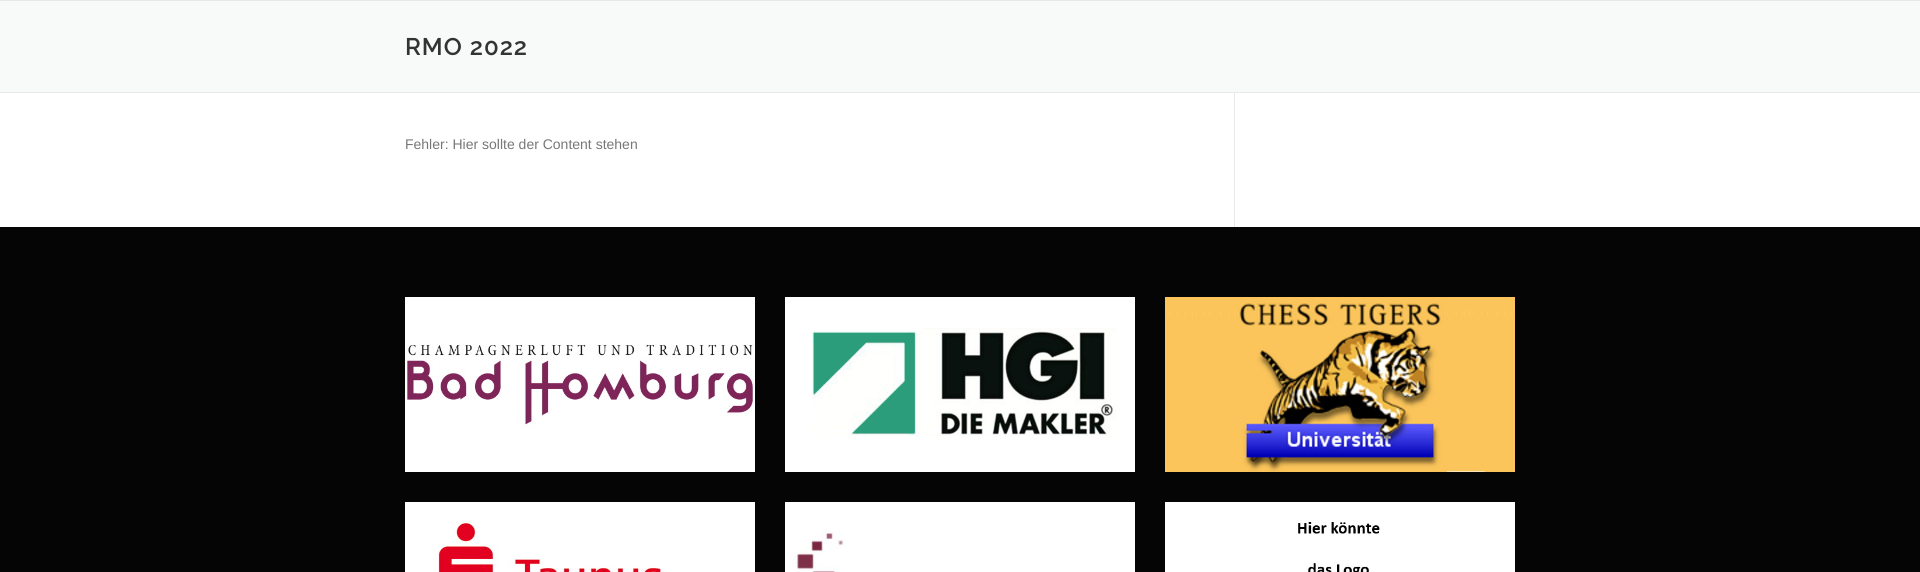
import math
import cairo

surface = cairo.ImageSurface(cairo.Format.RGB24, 1920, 572)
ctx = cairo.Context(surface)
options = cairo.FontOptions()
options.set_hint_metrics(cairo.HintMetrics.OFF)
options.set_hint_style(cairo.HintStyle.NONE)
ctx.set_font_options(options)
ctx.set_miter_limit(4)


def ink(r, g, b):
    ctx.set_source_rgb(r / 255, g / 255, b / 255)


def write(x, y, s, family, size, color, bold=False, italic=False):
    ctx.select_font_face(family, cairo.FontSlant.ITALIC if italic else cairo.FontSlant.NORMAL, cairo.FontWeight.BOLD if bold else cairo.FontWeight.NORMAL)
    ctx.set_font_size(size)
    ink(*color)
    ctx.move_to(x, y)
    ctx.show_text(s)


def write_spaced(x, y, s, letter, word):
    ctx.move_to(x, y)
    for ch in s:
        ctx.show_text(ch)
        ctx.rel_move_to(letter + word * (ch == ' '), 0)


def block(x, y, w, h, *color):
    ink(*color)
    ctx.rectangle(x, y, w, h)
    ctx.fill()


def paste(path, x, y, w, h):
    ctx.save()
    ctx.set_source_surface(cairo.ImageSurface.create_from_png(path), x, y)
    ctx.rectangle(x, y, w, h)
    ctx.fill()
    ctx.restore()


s1 = dict(family="Liberation Sans", size=14, color=(119, 119, 119))

ink(255, 255, 255)
ctx.paint()
block(0, 1, 1920, 91, 248, 249, 249)
block(0, 0, 1920, 1, 233, 233, 233)
block(0, 92, 1920, 1, 233, 233, 233)
ctx.select_font_face("Raleway SemiBold")
ctx.set_font_size(24)
ink(51, 51, 51)
write_spaced(405, 55, "RMO 2022", 1, 0)
block(1234, 93, 1, 134, 233, 233, 233)
write(405, 149, "Fehler: Hier sollte der Content stehen", **s1)
block(0, 227, 1920, 345, 5, 5, 5)
paste("pic1.png", 405, 297, 350, 175)
paste("pic2.png", 405, 502, 350, 70)
paste("pic3.png", 785, 297, 350, 175)
paste("pic4.png", 785, 502, 350, 70)
paste("pic5.png", 1165, 297, 350, 175)
paste("pic6.png", 1165, 502, 350, 70)
surface.write_to_png("screenshot.png")
